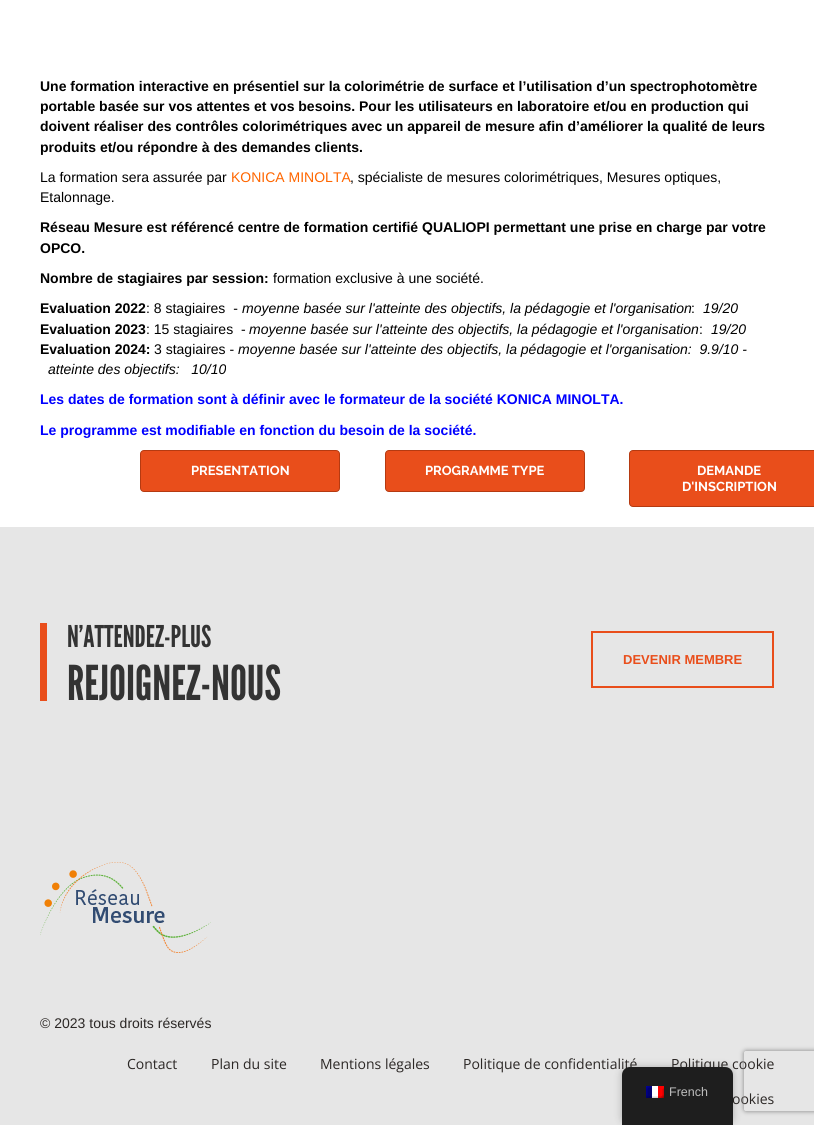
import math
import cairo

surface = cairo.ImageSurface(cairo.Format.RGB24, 814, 1125)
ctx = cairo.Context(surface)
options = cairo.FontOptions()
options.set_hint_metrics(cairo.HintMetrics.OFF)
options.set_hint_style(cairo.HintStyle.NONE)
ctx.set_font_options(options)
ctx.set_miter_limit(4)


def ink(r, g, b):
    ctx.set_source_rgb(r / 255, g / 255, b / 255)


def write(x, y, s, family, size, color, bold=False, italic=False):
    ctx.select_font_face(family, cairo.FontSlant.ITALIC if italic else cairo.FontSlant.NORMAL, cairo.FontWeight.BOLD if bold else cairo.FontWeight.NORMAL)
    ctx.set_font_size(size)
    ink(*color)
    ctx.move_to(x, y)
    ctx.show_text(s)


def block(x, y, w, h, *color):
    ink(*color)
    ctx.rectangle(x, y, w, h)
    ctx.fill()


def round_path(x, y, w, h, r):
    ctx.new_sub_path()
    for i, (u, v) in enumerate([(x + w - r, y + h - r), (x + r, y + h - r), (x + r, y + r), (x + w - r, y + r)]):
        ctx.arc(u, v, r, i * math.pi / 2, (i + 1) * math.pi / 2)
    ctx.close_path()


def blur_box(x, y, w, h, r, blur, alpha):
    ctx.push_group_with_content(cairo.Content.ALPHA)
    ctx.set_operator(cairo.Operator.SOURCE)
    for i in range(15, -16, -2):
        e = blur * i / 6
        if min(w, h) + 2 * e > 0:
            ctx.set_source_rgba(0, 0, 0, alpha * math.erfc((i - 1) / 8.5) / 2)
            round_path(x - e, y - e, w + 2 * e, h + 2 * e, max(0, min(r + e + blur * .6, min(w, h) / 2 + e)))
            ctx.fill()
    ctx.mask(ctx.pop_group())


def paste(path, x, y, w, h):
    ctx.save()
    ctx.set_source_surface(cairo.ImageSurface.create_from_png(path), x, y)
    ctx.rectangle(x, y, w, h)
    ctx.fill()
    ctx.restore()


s1 = dict(family="Liberation Sans", size=14, color=(0, 0, 0), bold=True)
s2 = dict(family="Liberation Sans", size=14, color=(0, 0, 0))
s3 = dict(family="Liberation Sans", size=14, color=(255, 102, 0))
s4 = dict(family="Liberation Sans", size=14, color=(0, 0, 0), italic=True)
s5 = dict(family="Liberation Sans", size=14, color=(0, 0, 255), bold=True)
s6 = dict(family="Raleway", size=13, color=(255, 255, 255), bold=True)
s7 = dict(family="League Gothic", size=30, color=(51, 51, 51))
s8 = dict(family="League Gothic", size=48, color=(51, 51, 51))
s9 = dict(family="Liberation Sans", size=13, color=(233, 78, 27), bold=True)
s10 = dict(family="Liberation Sans", size=14, color=(43, 39, 37))
s11 = dict(family="Open Sans", size=14, color=(43, 39, 37))
s12 = dict(family="Liberation Sans", size=12.5, color=(189, 189, 189))

ink(255, 255, 255)
ctx.paint()
write(40, 91, "Une formation interactive en présentiel sur la colorimétrie de surface et l’utilisation d’un spectrophotomètre", **s1)
write(40, 111, "portable basée sur vos attentes et vos besoins. Pour les utilisateurs en laboratoire et/ou en production qui", **s1)
write(40, 131, "doivent réaliser des contrôles colorimétriques avec un appareil de mesure afin d’améliorer la qualité de leurs", **s1)
write(40, 152, "produits et/ou répondre à des demandes clients.", **s1)
write(40, 182, "La formation sera assurée par", **s2)
write(231, 182, "KONICA MINOLTA", **s3)
write(350, 182, ", spécialiste de mesures colorimétriques, Mesures optiques,", **s2)
write(40, 202, "Etalonnage.", **s2)
write(40, 232, "Réseau Mesure est référencé centre de formation certifié QUALIOPI permettant une prise en charge par votre", **s1)
write(40, 253, "OPCO.", **s1)
write(40, 283, "Nombre de stagiaires par session:", **s1)
write(273, 283, "formation exclusive à une société.", **s2)
write(40, 313, "Evaluation 2022", **s1)
write(146, 313, ": 8 stagiaires  -", **s2)
write(242, 313, "moyenne basée sur l'atteinte des objectifs, la pédagogie et l'organisation", **s4)
write(691, 313, ":", **s2)
write(703, 313, "19/20", **s4)
write(40, 334, "Evaluation 2023", **s1)
write(146, 334, ": 15 stagiaires  -", **s2)
write(249, 334, "moyenne basée sur l'atteinte des objectifs, la pédagogie et l'organisation", **s4)
write(699, 334, ":", **s2)
write(711, 334, "19/20", **s4)
write(40, 354, "Evaluation 2024:", **s1)
write(154, 354, "3 stagiaires -", **s2)
write(238, 354, "moyenne basée sur l'atteinte des objectifs, la pédagogie et l'organisation:  9.9/10 -", **s4)
write(48, 374, "atteinte des objectifs:   10/10", **s4)
write(40, 404, "Les dates de formation sont à définir avec le formateur de la société KONICA MINOLTA.", **s5)
write(40, 435, "Le programme est modifiable en fonction du besoin de la société.", **s5)
ink(233, 78, 27)
round_path(140.5, 450.5, 199, 41, 3.5)
ctx.fill_preserve()
ink(181, 58, 17)
ctx.set_line_width(1)
ctx.stroke()
write(191, 475, "PRESENTATION", **s6)
ink(233, 78, 27)
round_path(385.5, 450.5, 199, 41, 3.5)
ctx.fill_preserve()
ink(181, 58, 17)
ctx.stroke()
write(425, 475, "PROGRAMME TYPE", **s6)
ink(233, 78, 27)
round_path(629.5, 450.5, 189, 56, 3.5)
ctx.fill_preserve()
ink(181, 58, 17)
ctx.stroke()
write(697, 475, "DEMANDE", **s6)
write(682, 491, "D'INSCRIPTION", **s6)
block(0, 527, 814, 598, 230, 230, 230)
block(40, 623, 7, 78, 233, 78, 27)
write(67, 647, "N’ATTENDEZ-PLUS", **s7)
write(67, 700, "REJOIGNEZ-NOUS", **s8)
ctx.rectangle(592, 632, 181, 55)
ink(233, 78, 27)
ctx.set_line_width(2)
ctx.stroke()
write(623, 664, "DEVENIR MEMBRE", **s9)
paste("pic1.png", 40, 862, 171, 91)
write(40, 1028, "© 2023 tous droits réservés", **s10)
write(127, 1069, "Contact", **s11)
write(211, 1069, "Plan du site", **s11)
write(320, 1069, "Mentions légales", **s11)
write(463, 1069, "Politique de confidentialité", **s11)
write(671, 1069, "Politique cookie", **s11)
write(732, 1104, "ookies", **s11)
ink(0, 0, 0)
blur_box(622, 1067, 111, 58, 8, 4, 0.25)
ink(30, 30, 30)
ctx.new_path()
ctx.move_to(630, 1067)
ctx.line_to(725, 1067)
ctx.curve_to(729.5, 1067, 733, 1070.5, 733, 1075)
ctx.line_to(733, 1125)
ctx.line_to(622, 1125)
ctx.line_to(622, 1075)
ctx.curve_to(622, 1070.5, 625.5, 1067, 630, 1067)
ctx.close_path()
ctx.fill()
paste("pic2.png", 646, 1086, 18, 12)
write(669, 1096, "French", **s12)
ctx.save()
ctx.set_fill_rule(cairo.FillRule.EVEN_ODD)
ctx.new_path()
ctx.move_to(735, 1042)
ctx.line_to(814, 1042)
ctx.line_to(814, 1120)
ctx.line_to(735, 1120)
ctx.close_path()
ctx.move_to(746, 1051)
ctx.line_to(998, 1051)
ctx.curve_to(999, 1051, 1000, 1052, 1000, 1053)
ctx.line_to(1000, 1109)
ctx.curve_to(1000, 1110, 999, 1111, 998, 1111)
ctx.line_to(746, 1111)
ctx.curve_to(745, 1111, 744, 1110, 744, 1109)
ctx.line_to(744, 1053)
ctx.curve_to(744, 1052, 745, 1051, 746, 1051)
ctx.close_path()
ctx.clip()
ink(128, 128, 128)
blur_box(744, 1051, 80, 60, 2, 2.5, 1)
ctx.restore()
surface.write_to_png("screenshot.png")
